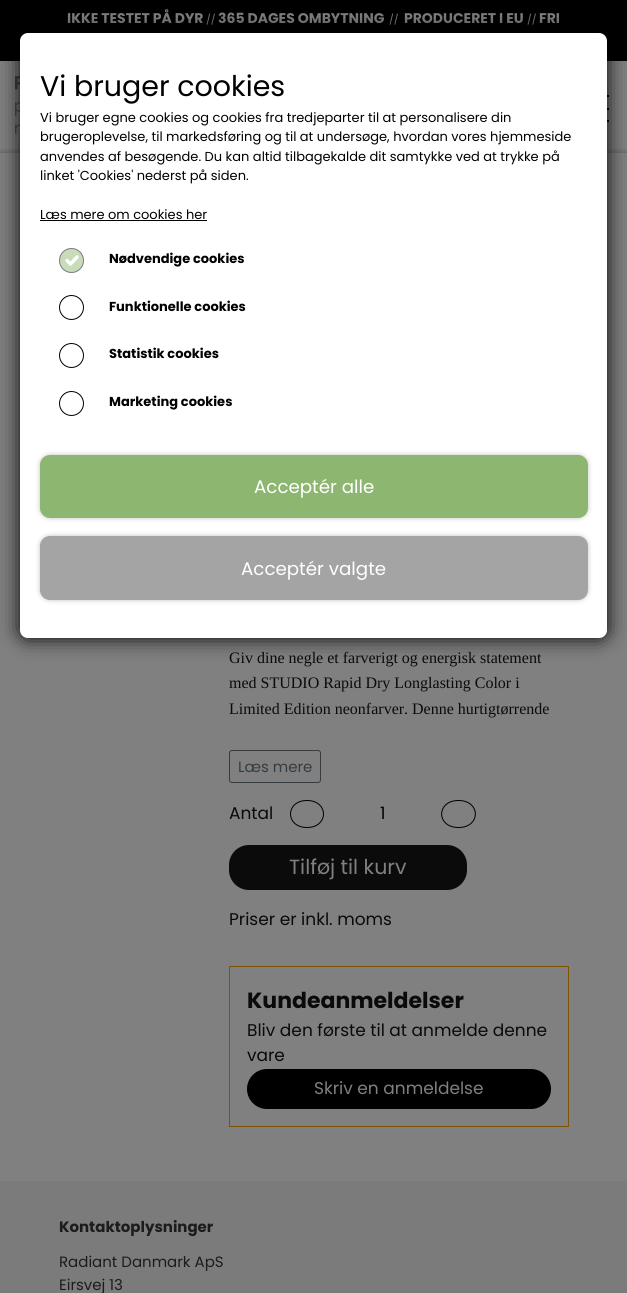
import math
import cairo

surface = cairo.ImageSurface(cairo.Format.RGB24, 627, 1293)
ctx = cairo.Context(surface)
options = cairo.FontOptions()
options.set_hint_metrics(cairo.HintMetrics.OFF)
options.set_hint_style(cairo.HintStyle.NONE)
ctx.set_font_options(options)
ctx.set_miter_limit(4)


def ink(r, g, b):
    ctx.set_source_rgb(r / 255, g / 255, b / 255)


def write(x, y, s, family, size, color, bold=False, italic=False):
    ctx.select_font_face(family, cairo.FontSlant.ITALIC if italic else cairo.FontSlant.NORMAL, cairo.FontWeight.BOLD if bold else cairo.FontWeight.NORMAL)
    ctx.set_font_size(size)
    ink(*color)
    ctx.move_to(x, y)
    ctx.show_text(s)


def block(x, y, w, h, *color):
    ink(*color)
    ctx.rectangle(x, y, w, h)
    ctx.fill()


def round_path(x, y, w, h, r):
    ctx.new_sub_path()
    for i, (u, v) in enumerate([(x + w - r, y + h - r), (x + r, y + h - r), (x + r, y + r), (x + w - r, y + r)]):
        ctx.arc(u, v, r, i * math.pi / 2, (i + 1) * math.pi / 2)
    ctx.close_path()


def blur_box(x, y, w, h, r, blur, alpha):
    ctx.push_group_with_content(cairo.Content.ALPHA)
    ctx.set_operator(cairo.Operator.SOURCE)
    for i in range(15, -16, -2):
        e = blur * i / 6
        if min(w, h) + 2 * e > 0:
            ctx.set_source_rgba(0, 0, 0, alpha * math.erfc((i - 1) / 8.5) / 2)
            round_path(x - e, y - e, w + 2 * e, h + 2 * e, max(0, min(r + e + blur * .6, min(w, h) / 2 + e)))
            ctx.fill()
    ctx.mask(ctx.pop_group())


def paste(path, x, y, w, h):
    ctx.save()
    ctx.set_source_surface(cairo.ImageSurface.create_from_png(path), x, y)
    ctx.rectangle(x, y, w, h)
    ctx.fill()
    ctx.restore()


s1 = dict(family="Poppins", size=14, color=(128, 128, 128), bold=True)
s2 = dict(family="Poppins", size=10, color=(128, 128, 128))
s3 = dict(family="Poppins", size=28.5, color=(0, 0, 0))
s4 = dict(family="Poppins", size=13, color=(0, 0, 0))
s5 = dict(family="Poppins", size=13, color=(0, 0, 0), bold=True)
s6 = dict(family="Poppins", size=18.25, color=(255, 255, 255))
s7 = dict(family="Liberation Serif", size=16, color=(11, 10, 10))
s8 = dict(family="Poppins", size=15, color=(54, 59, 63))
s9 = dict(family="Poppins", size=17, color=(11, 10, 10))
s10 = dict(family="Poppins", size=17, color=(0, 0, 0))
s11 = dict(family="Poppins", size=20.5, color=(128, 128, 128))
s12 = dict(family="Poppins", size=22, color=(11, 10, 10), bold=True)
s13 = dict(family="Poppins", size=17, color=(128, 128, 128))
s14 = dict(family="Poppins", size=15, color=(28, 28, 28), bold=True)
s15 = dict(family="Poppins", size=15, color=(28, 28, 28))

ink(123, 123, 123)
ctx.paint()
block(0, 0, 627, 61, 0, 0, 0)
write(67, 23, "IKKE TESTET PÅ DYR", **s1)
write(206, 23, "//", **s2)
write(218, 23, "365 DAGES OMBYTNING", **s1)
write(389, 23, "//", **s2)
write(404, 23, "PRODUCERET I EU", **s1)
write(527, 23, "//", **s2)
write(539, 23, "FRI", **s1)
block(0, 61, 627, 87, 128, 128, 128)
paste("pic1.png", 15, 76, 5, 59)
block(607, 95, 2, 2, 0, 0, 0)
block(607, 108, 2, 2, 0, 0, 0)
block(607, 120, 2, 2, 0, 0, 0)
gradient = cairo.LinearGradient(314, 153, 314, 148)
gradient.add_color_stop_rgba(0, 0.427, 0.427, 0.427, 1)
gradient.add_color_stop_rgba(1, 0.502, 0.502, 0.502, 1)
ctx.set_source(gradient)
ctx.rectangle(0, 148, 627, 5)
ctx.fill()
block(0, 153, 627, 1028, 128, 128, 128)
ink(0, 0, 0)
blur_box(20, 33, 587, 605, 8, 10, 1)
ink(255, 255, 255)
round_path(20, 33, 587, 605, 8)
ctx.fill()
write(40, 96, "Vi bruger cookies", **s3)
write(40, 122, "Vi bruger egne cookies og cookies fra tredjeparter til at personalisere din", **s4)
write(40, 141, "brugeroplevelse, til markedsføring og til at undersøge, hvordan vores hjemmeside", **s4)
write(40, 161, "anvendes af besøgende. Du kan altid tilbagekalde dit samtykke ved at trykke på", **s4)
write(40, 180, "linket 'Cookies' nederst på siden.", **s4)
write(40, 219, "Læs mere om cookies her", **s4)
block(40, 220, 167, 1, 0, 0, 0)
ink(200, 220, 186)
ctx.new_path()
ctx.arc(71.5, 260.5, 12.5, 0, 2 * math.pi)
ctx.fill()
ctx.new_path()
ctx.move_to(67, 260.5)
ctx.line_to(70.5, 264)
ctx.line_to(77, 257)
ink(255, 255, 255)
ctx.set_line_width(3.4)
ctx.set_line_cap(cairo.LineCap.ROUND)
ctx.set_line_join(cairo.LineJoin.ROUND)
ctx.stroke()
ctx.arc(71.5, 260.5, 12, 0, 2 * math.pi)
ink(128, 128, 128)
ctx.set_line_width(1)
ctx.set_line_cap(cairo.LineCap.BUTT)
ctx.set_line_join(cairo.LineJoin.MITER)
ctx.stroke()
write(109, 263, "Nødvendige cookies", **s5)
ctx.new_path()
ctx.arc(71.5, 307.5, 12, 0, 2 * math.pi)
ctx.stroke()
write(109, 311, "Funktionelle cookies", **s5)
ctx.new_path()
ctx.arc(71.5, 355.5, 12, 0, 2 * math.pi)
ctx.stroke()
write(109, 358, "Statistik cookies", **s5)
ctx.new_path()
ctx.arc(71.5, 403.5, 12, 0, 2 * math.pi)
ctx.stroke()
write(109, 406, "Marketing cookies", **s5)
ink(0, 0, 0)
blur_box(40, 455, 548, 63, 10, 2.5, 0.25)
ink(141, 182, 113)
round_path(40, 455, 548, 63, 10)
ctx.fill()
write(254, 493, "Acceptér alle", **s6)
ink(0, 0, 0)
blur_box(40, 536, 548, 64, 10, 2.5, 0.25)
ink(164, 164, 164)
round_path(40, 536, 548, 64, 10)
ctx.fill()
write(241, 575, "Acceptér valgte", **s6)
write(229, 663, "Giv dine negle et farverigt og energisk statement", **s7)
write(229, 688, "med STUDIO Rapid Dry Longlasting Color i", **s7)
write(229, 714, "Limited Edition neonfarver. Denne hurtigtørrende", **s7)
round_path(229.5, 750.5, 91, 32, 2.5)
ink(54, 59, 63)
ctx.stroke()
write(238, 772, "Læs mere", **s8)
write(229, 819, "Antal", **s9)
ctx.new_path()
ctx.move_to(307, 800.5)
ctx.curve_to(329, 800.5, 329, 827.5, 307, 827.5)
ctx.curve_to(285, 827.5, 285, 800.5, 307, 800.5)
ctx.close_path()
ink(0, 0, 0)
ctx.stroke()
write(380, 819, "1", **s10)
ctx.new_path()
ctx.move_to(458.5, 800.5)
ctx.curve_to(481, 800.5, 481, 827.5, 458.5, 827.5)
ctx.curve_to(436, 827.5, 436, 800.5, 458.5, 800.5)
ctx.close_path()
ctx.stroke()
ink(11, 11, 11)
round_path(229, 845, 238, 45, 20)
ctx.fill()
write(289, 874, "Tilføj til kurv", **s11)
write(229, 925, "Priser er inkl. moms", **s9)
ctx.rectangle(229.5, 966.5, 339, 160)
ink(128, 83, 0)
ctx.stroke()
write(247, 1008, "Kundeanmeldelser", **s12)
write(247, 1036, "Bliv den første til at anmelde denne", **s9)
write(247, 1061, "vare", **s9)
ink(0, 0, 0)
round_path(247, 1069, 304, 40, 20)
ctx.fill()
write(314, 1094, "Skriv en anmeldelse", **s13)
write(59, 1232, "Kontaktoplysninger", **s14)
write(59, 1267, "Radiant Danmark ApS", **s15)
write(59, 1290, "Eirsvej 13", **s15)
surface.write_to_png("screenshot.png")
